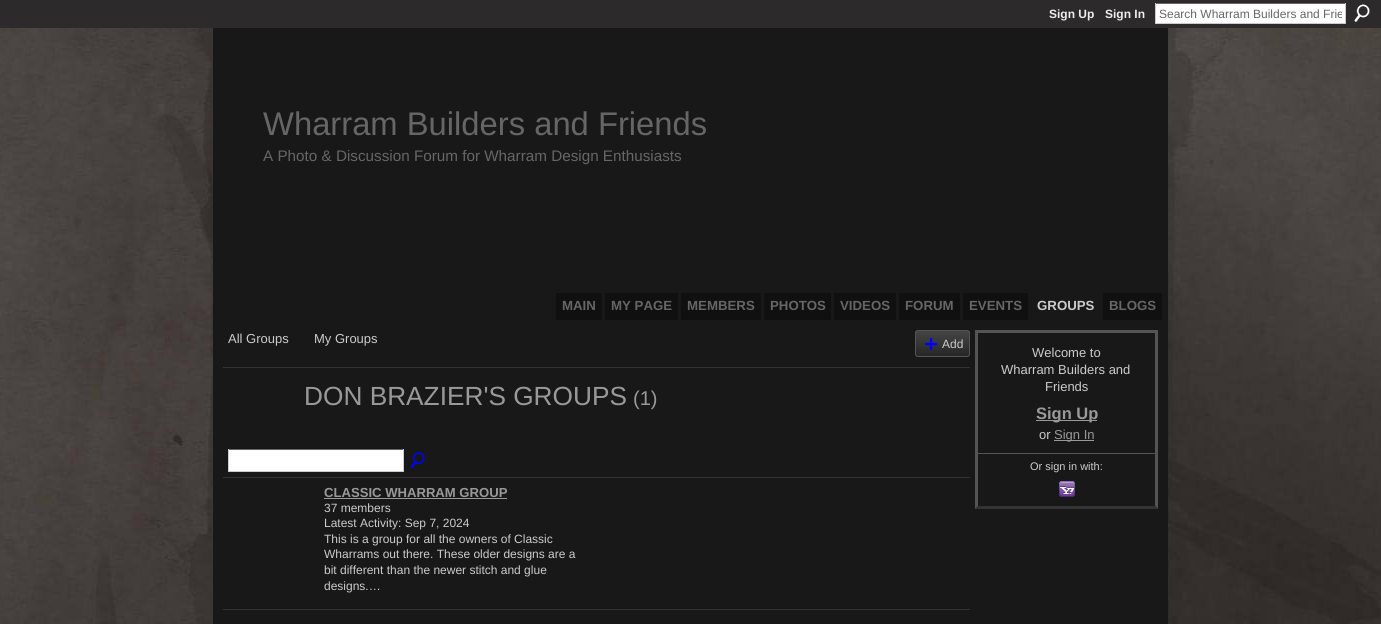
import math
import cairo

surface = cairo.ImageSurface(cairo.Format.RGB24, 1381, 624)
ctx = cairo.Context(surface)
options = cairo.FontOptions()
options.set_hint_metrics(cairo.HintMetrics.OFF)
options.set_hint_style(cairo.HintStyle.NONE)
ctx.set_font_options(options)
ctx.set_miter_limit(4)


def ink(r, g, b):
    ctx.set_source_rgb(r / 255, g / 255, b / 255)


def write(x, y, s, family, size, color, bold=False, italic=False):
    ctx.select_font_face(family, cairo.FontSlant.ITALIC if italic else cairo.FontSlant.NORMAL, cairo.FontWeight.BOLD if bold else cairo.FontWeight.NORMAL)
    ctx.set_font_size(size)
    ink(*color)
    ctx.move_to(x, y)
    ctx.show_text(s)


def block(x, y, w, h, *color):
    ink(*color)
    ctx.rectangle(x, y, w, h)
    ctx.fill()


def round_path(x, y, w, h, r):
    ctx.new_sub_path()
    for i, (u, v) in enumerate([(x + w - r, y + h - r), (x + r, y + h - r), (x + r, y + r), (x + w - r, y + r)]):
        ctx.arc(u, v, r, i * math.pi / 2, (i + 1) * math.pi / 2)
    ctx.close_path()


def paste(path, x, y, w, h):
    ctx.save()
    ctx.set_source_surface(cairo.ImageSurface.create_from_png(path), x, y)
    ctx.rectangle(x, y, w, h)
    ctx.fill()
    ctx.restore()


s1 = dict(family="Liberation Sans", size=12, color=(238, 238, 238), bold=True)
s2 = dict(family="Liberation Sans", size=12, color=(102, 102, 102))
s3 = dict(family="Liberation Sans", size=32.75, color=(102, 102, 102))
s4 = dict(family="Liberation Sans", size=15.25, color=(102, 102, 102))
s5 = dict(family="Liberation Sans", size=13.25, color=(102, 102, 102), bold=True)
s6 = dict(family="Liberation Sans", size=13.25, color=(204, 204, 204), bold=True)
s7 = dict(family="Liberation Sans", size=13, color=(204, 204, 204))
s8 = dict(family="Liberation Sans", size=12, color=(204, 204, 204))
s9 = dict(family="Liberation Sans", size=26.25, color=(153, 153, 153))
s10 = dict(family="Liberation Sans", size=20, color=(153, 153, 153))
s11 = dict(family="Liberation Sans", size=13.1, color=(153, 153, 153), bold=True)
s12 = dict(family="Liberation Sans", size=16.5, color=(153, 153, 153), bold=True)
s13 = dict(family="Liberation Sans", size=13, color=(153, 153, 153))
s14 = dict(family="Liberation Sans", size=11, color=(204, 204, 204))

ink(255, 255, 255)
ctx.paint()
paste("pic1.png", 0, 28, 1381, 596)
block(0, 0, 1381, 28, 44, 42, 42)
write(1049, 18, "Sign Up", **s1)
write(1105, 18, "Sign In", **s1)
block(1156, 4, 189, 19, 255, 255, 255)
block(1155, 3, 191, 1, 102, 102, 102)
block(1345, 3, 1, 21, 204, 204, 204)
block(1155, 23, 191, 1, 204, 204, 204)
block(1155, 3, 1, 21, 204, 204, 204)
ctx.save()
ctx.rectangle(1159, 7, 183, 14)
ctx.clip()
write(1159, 18, "Search Wharram Builders and Frie", **s2)
ctx.restore()
paste("pic2.png", 1354, 4, 16, 18)
block(213, 28, 955, 596, 25, 24, 24)
write(263, 135, "Wharram Builders and Friends", **s3)
write(263, 161, "A Photo & Discussion Forum for Wharram Design Enthusiasts", **s4)
block(556, 293, 46, 27, 16, 16, 16)
write(562, 310, "MAIN", **s5)
block(605, 293, 73, 27, 16, 16, 16)
write(611, 310, "MY PAGE", **s5)
block(681, 293, 80, 27, 16, 16, 16)
write(687, 310, "MEMBERS", **s5)
block(764, 293, 67, 27, 16, 16, 16)
write(770, 310, "PHOTOS", **s5)
block(834, 293, 62, 27, 16, 16, 16)
write(840, 310, "VIDEOS", **s5)
block(899, 293, 61, 27, 16, 16, 16)
write(905, 310, "FORUM", **s5)
block(963, 293, 65, 27, 16, 16, 16)
write(969, 310, "EVENTS", **s5)
write(1037, 310, "GROUPS", **s6)
block(1103, 293, 59, 27, 16, 16, 16)
write(1109, 310, "BLOGS", **s5)
block(223, 367, 747, 1, 51, 51, 51)
write(228, 343, "All Groups", **s7)
write(314, 343, "My Groups", **s7)
paste("pic3.png", 915, 331, 55, 26)
round_path(915.5, 330.5, 54, 26, 2.5)
ink(85, 84, 84)
ctx.set_line_width(1)
ctx.stroke()
paste("pic4.png", 925, 338, 12, 12)
write(942, 348, "Add", **s8)
write(304, 405, "DON BRAZIER'S GROUPS", **s9)
write(633, 405, "(1)", **s10)
block(223, 477, 747, 1, 51, 51, 51)
block(229, 450, 174, 21, 255, 255, 255)
block(228, 449, 176, 1, 102, 102, 102)
block(403, 449, 1, 23, 204, 204, 204)
block(228, 471, 176, 1, 204, 204, 204)
block(228, 449, 1, 23, 204, 204, 204)
paste("pic5.png", 410, 452, 15, 16)
block(223, 609, 747, 1, 51, 51, 51)
write(324, 497, "CLASSIC WHARRAM GROUP", **s11)
block(324, 498, 183, 1, 153, 153, 153)
write(324, 512, "37 members", **s8)
write(324, 527, "Latest Activity: Sep 7, 2024", **s8)
write(324, 543, "This is a group for all the owners of Classic", **s8)
write(324, 558, "Wharrams out there. These older designs are a", **s8)
write(324, 574, "bit different than the newer stitch and glue", **s8)
write(324, 590, "designs.…", **s8)
block(975, 330, 183, 3, 85, 84, 84)
ctx.new_path()
ctx.move_to(1158, 330)
ctx.line_to(1158, 509)
ctx.line_to(1155, 506)
ctx.line_to(1155, 333)
ctx.close_path()
ctx.fill()
ink(51, 51, 51)
ctx.new_path()
ctx.move_to(1158, 509)
ctx.line_to(975, 509)
ctx.line_to(978, 506)
ctx.line_to(1155, 506)
ctx.close_path()
ctx.fill()
ink(85, 84, 84)
ctx.new_path()
ctx.move_to(975, 509)
ctx.line_to(975, 330)
ctx.line_to(978, 333)
ctx.line_to(978, 506)
ctx.close_path()
ctx.fill()
write(1032, 357, "Welcome to", **s7)
write(1001, 374, "Wharram Builders and", **s7)
write(1045, 391, "Friends", **s7)
block(1036, 420, 61, 1, 153, 153, 153)
write(1036, 419, "Sign Up", **s12)
write(1039, 439, "or", **s7)
block(1054, 440, 40, 1, 153, 153, 153)
write(1054, 439, "Sign In", **s13)
block(978, 453, 177, 1, 85, 84, 84)
write(1030, 470, "Or sign in with:", **s14)
paste("pic6.png", 1059, 481, 16, 16)
surface.write_to_png("screenshot.png")
